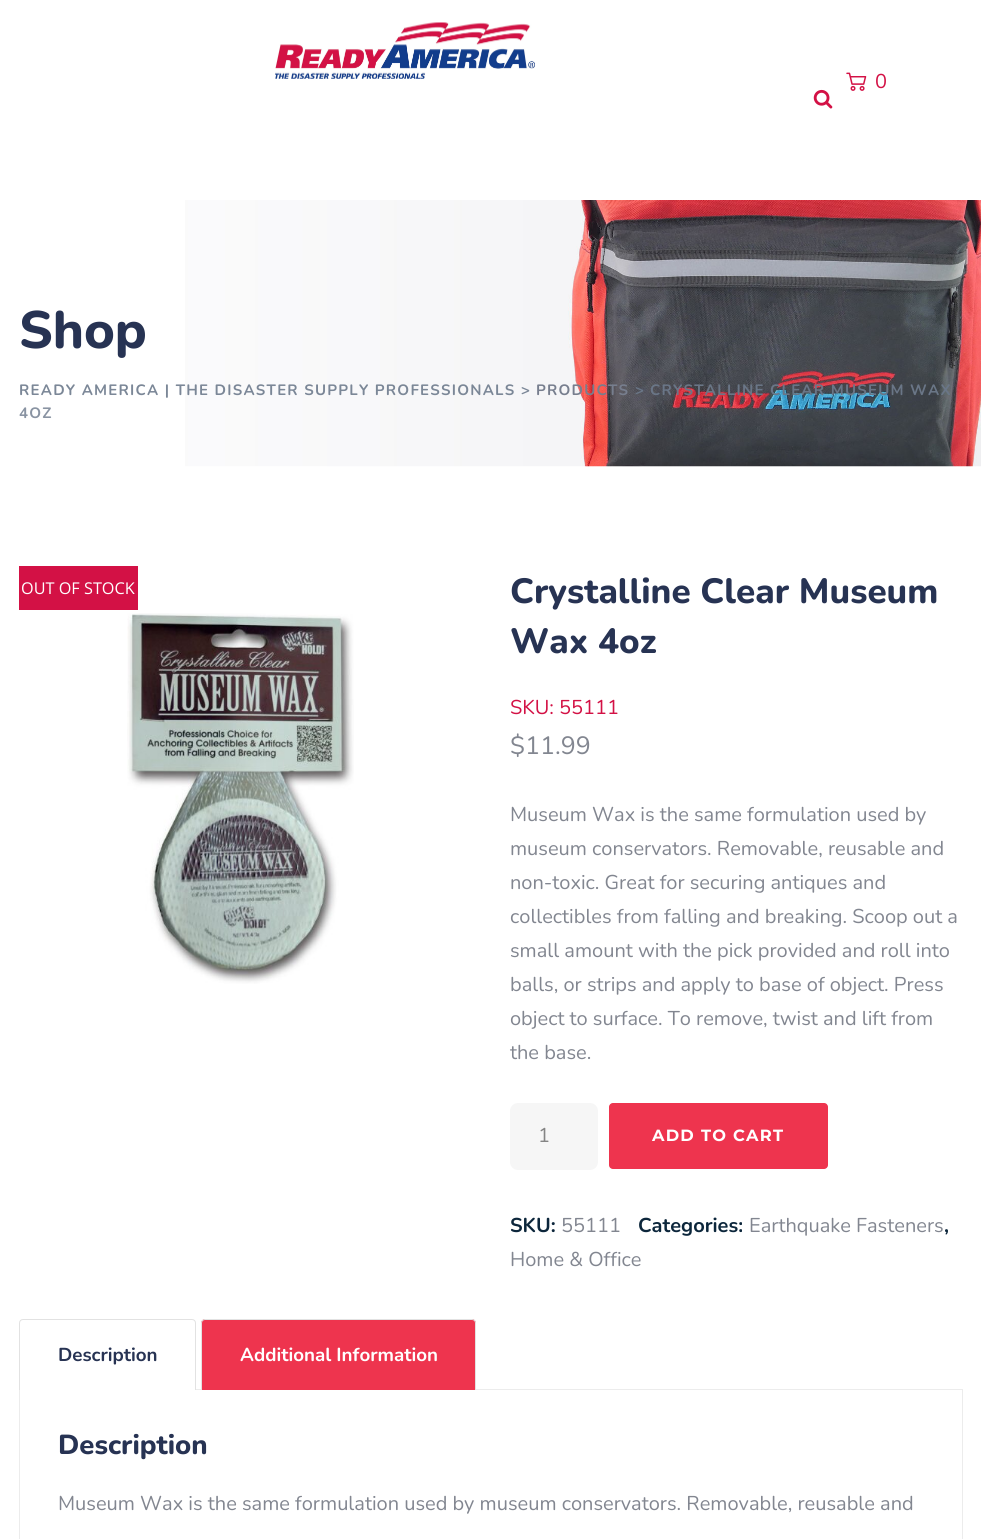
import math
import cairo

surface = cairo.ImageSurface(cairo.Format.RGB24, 981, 1539)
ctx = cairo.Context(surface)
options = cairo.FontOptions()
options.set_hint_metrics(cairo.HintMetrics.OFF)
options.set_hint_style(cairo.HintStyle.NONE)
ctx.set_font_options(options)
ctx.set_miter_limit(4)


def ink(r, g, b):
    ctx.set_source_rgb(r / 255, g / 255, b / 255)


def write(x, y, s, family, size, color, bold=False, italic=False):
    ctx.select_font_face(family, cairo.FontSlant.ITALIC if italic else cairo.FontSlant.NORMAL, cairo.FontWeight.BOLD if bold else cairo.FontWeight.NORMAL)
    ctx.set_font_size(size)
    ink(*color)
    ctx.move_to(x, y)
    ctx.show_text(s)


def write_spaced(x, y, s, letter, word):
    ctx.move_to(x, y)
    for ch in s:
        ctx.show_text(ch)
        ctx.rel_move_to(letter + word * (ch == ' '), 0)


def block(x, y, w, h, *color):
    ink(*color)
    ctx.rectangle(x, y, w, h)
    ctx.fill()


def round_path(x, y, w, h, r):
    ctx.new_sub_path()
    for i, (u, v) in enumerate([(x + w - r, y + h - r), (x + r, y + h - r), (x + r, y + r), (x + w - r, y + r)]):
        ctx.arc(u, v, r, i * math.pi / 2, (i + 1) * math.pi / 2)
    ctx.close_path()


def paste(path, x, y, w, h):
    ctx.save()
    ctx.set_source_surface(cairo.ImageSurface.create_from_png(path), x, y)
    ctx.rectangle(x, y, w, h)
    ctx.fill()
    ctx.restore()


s1 = dict(family="Nunito", size=20, color=(211, 17, 69))
s2 = dict(family="Nunito ExtraBold", size=52.5, color=(39, 51, 83))
s3 = dict(family="Open Sans", size=16.25, color=(255, 255, 255))
s4 = dict(family="Nunito ExtraBold", size=35, color=(39, 51, 83))
s5 = dict(family="Nunito", size=25, color=(130, 134, 144))
s6 = dict(family="Nunito", size=20, color=(130, 134, 144))
s7 = dict(family="Nunito", size=20, color=(132, 132, 132))
s8 = dict(family="Nunito", size=20, color=(12, 38, 59), bold=True)
s9 = dict(family="Nunito", size=18.75, color=(39, 51, 83), bold=True)
s10 = dict(family="Nunito", size=18.75, color=(255, 255, 255), bold=True)
s11 = dict(family="Nunito ExtraBold", size=27.5, color=(39, 51, 83))

ink(255, 255, 255)
ctx.paint()
paste("pic1.png", 275, 22, 260, 57)
paste("pic2.png", 846, 72, 21, 19)
write(875, 88, "0", **s1)
paste("pic3.png", 813, 89, 20, 20)
paste("pic4.png", 185, 200, 796, 267)
write(19, 348, "Shop", **s2)
ctx.select_font_face("Nunito", cairo.FontSlant.NORMAL, cairo.FontWeight.BOLD)
ctx.set_font_size(15)
ink(123, 135, 151)
write_spaced(19, 395, "READY AMERICA | THE DISASTER SUPPLY PROFESSIONALS", 1.25, 0)
write_spaced(521, 395, ">", 1.25, 0)
ink(119, 126, 142)
write_spaced(536, 395, "PRODUCTS", 1.25, 0)
ink(106, 118, 135)
write_spaced(635, 395, ">", 1.25, 0)
write_spaced(650, 395, "CRYSTALLINE CLEAR MUSEUM WAX", 1.25, 0)
ink(137, 147, 162)
write_spaced(19, 418, "4OZ", 1.25, 0)
block(19, 566, 119, 44, 211, 17, 69)
write(21, 594, "OUT OF STOCK", **s3)
paste("pic5.png", 127, 613, 227, 371)
write(510, 603, "Crystalline Clear Museum", **s4)
write(510, 653, "Wax 4oz", **s4)
write(510, 714, "SKU: 55111", **s1)
write(510, 754, "$11.99", **s5)
write(510, 821, "Museum Wax is the same formulation used by", **s6)
write(510, 855, "museum conservators. Removable, reusable and", **s6)
write(510, 889, "non-toxic. Great for securing antiques and", **s6)
write(510, 923, "collectibles from falling and breaking. Scoop out a", **s6)
write(510, 957, "small amount with the pick provided and roll into", **s6)
write(510, 991, "balls, or strips and apply to base of object. Press", **s6)
write(510, 1025, "object to surface. To remove, twist and lift from", **s6)
write(510, 1059, "the base.", **s6)
ink(246, 246, 246)
round_path(510, 1103, 88, 67, 8)
ctx.fill()
write(538, 1142, "1", **s7)
ink(238, 52, 78)
round_path(609, 1103, 219, 66, 4)
ctx.fill()
ctx.select_font_face("Montserrat", cairo.FontSlant.NORMAL, cairo.FontWeight.BOLD)
ctx.set_font_size(16.25)
ink(255, 255, 255)
write_spaced(652, 1141, "ADD TO CART", 1.25, 0)
write(510, 1232, "SKU:", **s8)
write(561, 1232, "55111", **s6)
write(638, 1232, "Categories:", **s8)
write(749, 1232, "Earthquake Fasteners", **s6)
write(944, 1232, ",", **s8)
write(510, 1266, "Home & Office", **s6)
ctx.rectangle(19.5, 1389.5, 943, 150)
ink(236, 236, 236)
ctx.set_line_width(1)
ctx.stroke()
block(19, 1389, 177, 1, 255, 255, 255)
ctx.save()
ctx.rectangle(19, 1318, 944, 72)
ctx.clip()
ctx.new_path()
ctx.move_to(23, 1319.5)
ctx.line_to(192, 1319.5)
ctx.curve_to(194, 1319.5, 195.5, 1321, 195.5, 1323)
ctx.line_to(195.5, 1390.5)
ctx.line_to(19.5, 1390.5)
ctx.line_to(19.5, 1323)
ctx.curve_to(19.5, 1321, 21, 1319.5, 23, 1319.5)
ctx.close_path()
ink(226, 226, 226)
ctx.stroke()
ctx.restore()
write(58, 1361, "Description", **s9)
ink(238, 52, 78)
ctx.new_path()
ctx.move_to(205, 1319)
ctx.line_to(472, 1319)
ctx.curve_to(474, 1319, 476, 1321, 476, 1323)
ctx.line_to(476, 1390)
ctx.line_to(201, 1390)
ctx.line_to(201, 1323)
ctx.curve_to(201, 1321, 203, 1319, 205, 1319)
ctx.close_path()
ctx.fill()
ctx.save()
ctx.rectangle(19, 1318, 944, 72)
ctx.clip()
ctx.new_path()
ctx.move_to(205, 1319.5)
ctx.line_to(472, 1319.5)
ctx.curve_to(474, 1319.5, 475.5, 1321, 475.5, 1323)
ctx.line_to(475.5, 1390.5)
ctx.line_to(201.5, 1390.5)
ctx.line_to(201.5, 1323)
ctx.curve_to(201.5, 1321, 203, 1319.5, 205, 1319.5)
ctx.close_path()
ink(226, 226, 226)
ctx.stroke()
ctx.restore()
write(240, 1361, "Additional Information", **s10)
write(58, 1454, "Description", **s11)
write(58, 1510, "Museum Wax is the same formulation used by museum conservators. Removable, reusable and", **s6)
surface.write_to_png("screenshot.png")
